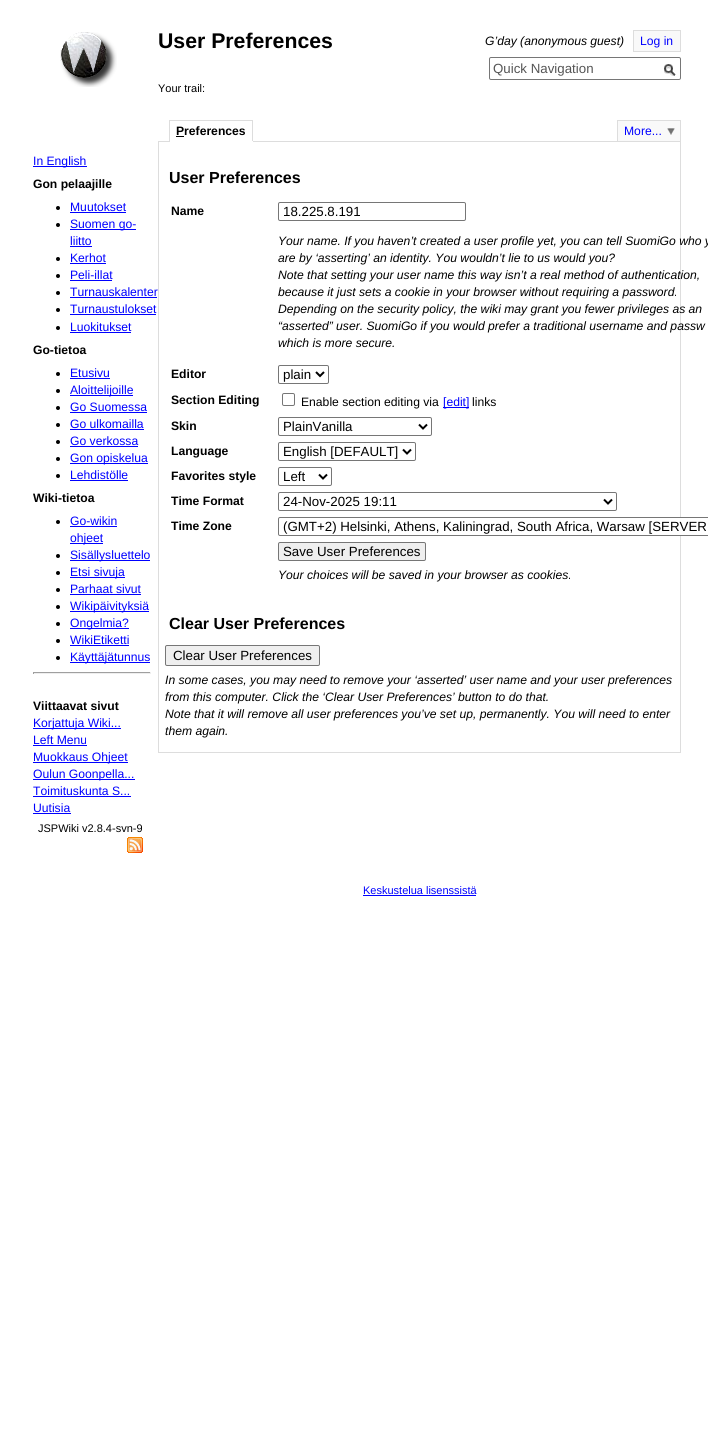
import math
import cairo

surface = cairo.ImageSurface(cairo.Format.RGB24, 708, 1446)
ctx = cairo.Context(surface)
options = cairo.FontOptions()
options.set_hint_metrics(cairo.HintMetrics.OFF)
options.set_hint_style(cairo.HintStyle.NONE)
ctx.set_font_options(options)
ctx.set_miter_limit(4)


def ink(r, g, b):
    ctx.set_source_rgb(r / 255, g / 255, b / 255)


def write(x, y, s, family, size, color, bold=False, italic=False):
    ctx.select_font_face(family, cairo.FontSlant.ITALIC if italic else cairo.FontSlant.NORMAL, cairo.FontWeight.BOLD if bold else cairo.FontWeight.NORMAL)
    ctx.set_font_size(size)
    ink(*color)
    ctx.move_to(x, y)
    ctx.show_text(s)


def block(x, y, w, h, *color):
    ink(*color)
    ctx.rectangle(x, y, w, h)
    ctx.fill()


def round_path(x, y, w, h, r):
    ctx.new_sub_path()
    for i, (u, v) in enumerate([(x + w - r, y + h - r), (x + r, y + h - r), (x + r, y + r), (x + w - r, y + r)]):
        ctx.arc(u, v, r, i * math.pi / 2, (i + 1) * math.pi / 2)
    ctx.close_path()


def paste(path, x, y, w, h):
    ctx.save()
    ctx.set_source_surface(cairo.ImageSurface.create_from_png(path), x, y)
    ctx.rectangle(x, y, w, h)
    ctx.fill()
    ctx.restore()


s1 = dict(family="Liberation Sans", size=21.25, color=(0, 0, 0), bold=True)
s2 = dict(family="Liberation Sans", size=12.15, color=(0, 0, 0), italic=True)
s3 = dict(family="Liberation Sans", size=12.15, color=(0, 0, 255))
s4 = dict(family="Liberation Sans", size=13.3, color=(85, 85, 85))
s5 = dict(family="Liberation Sans", size=11, color=(0, 0, 0))
s6 = dict(family="Liberation Sans", size=12.15, color=(0, 0, 0), bold=True)
s7 = dict(family="Liberation Sans", size=16, color=(0, 0, 0), bold=True)
s8 = dict(family="Liberation Sans", size=13.3, color=(0, 0, 0))
s9 = dict(family="Liberation Sans", size=12.15, color=(0, 0, 0))
s10 = dict(family="Liberation Sans", size=11, color=(0, 0, 255))

ink(255, 255, 255)
ctx.paint()
paste("pic1.png", 60, 32, 57, 55)
write(158, 48, "User Preferences", **s1)
write(485, 45, "G’day (anonymous guest)", **s2)
ink(249, 249, 249)
ctx.rectangle(633.5, 30.5, 47, 21)
ctx.fill_preserve()
ink(221, 221, 221)
ctx.set_line_width(1)
ctx.stroke()
write(640, 45, "Log in", **s3)
round_path(489.5, 57.5, 191, 22, 1.5)
ink(118, 118, 118)
ctx.stroke()
write(493, 73, "Quick Navigation", **s4)
paste("pic2.png", 664, 64, 12, 12)
write(158, 92, "Your trail:", **s5)
block(33, 166, 54, 1, 0, 0, 255)
write(33, 165, "In English", **s3)
write(33, 188, "Gon pelaajille", **s6)
ctx.new_path()
ctx.arc(58, 208, 2, 0, 2 * math.pi)
ctx.fill()
write(70, 211, "Muutokset", **s3)
block(70, 212, 56, 1, 0, 0, 255)
ink(0, 0, 0)
ctx.new_path()
ctx.arc(58, 225, 2, 0, 2 * math.pi)
ctx.fill()
block(70, 229, 66, 1, 0, 0, 255)
write(70, 228, "Suomen go-", **s3)
write(70, 245, "liitto", **s3)
block(70, 246, 22, 1, 0, 0, 255)
ink(0, 0, 0)
ctx.new_path()
ctx.arc(58, 259, 2, 0, 2 * math.pi)
ctx.fill()
write(70, 262, "Kerhot", **s3)
block(70, 263, 36, 1, 0, 0, 255)
ink(0, 0, 0)
ctx.new_path()
ctx.arc(58, 276, 2, 0, 2 * math.pi)
ctx.fill()
write(70, 279, "Peli-illat", **s3)
block(70, 280, 42, 1, 0, 0, 255)
ink(0, 0, 0)
ctx.new_path()
ctx.arc(58, 293, 2, 0, 2 * math.pi)
ctx.fill()
write(70, 296, "Turnauskalenter", **s3)
block(70, 297, 87, 1, 0, 0, 255)
ink(0, 0, 0)
ctx.new_path()
ctx.arc(58, 310, 2, 0, 2 * math.pi)
ctx.fill()
write(70, 313, "Turnaustulokset", **s3)
block(70, 314, 86, 1, 0, 0, 255)
ink(0, 0, 0)
ctx.new_path()
ctx.arc(58, 328, 2, 0, 2 * math.pi)
ctx.fill()
write(70, 331, "Luokitukset", **s3)
block(70, 332, 61, 1, 0, 0, 255)
write(33, 354, "Go-tietoa", **s6)
ctx.new_path()
ctx.arc(58, 374, 2, 0, 2 * math.pi)
ctx.fill()
write(70, 377, "Etusivu", **s3)
block(70, 378, 40, 1, 0, 0, 255)
ink(0, 0, 0)
ctx.new_path()
ctx.arc(58, 391, 2, 0, 2 * math.pi)
ctx.fill()
block(70, 395, 63, 1, 0, 0, 255)
write(70, 394, "Aloittelijoille", **s3)
ink(0, 0, 0)
ctx.new_path()
ctx.arc(58, 408, 2, 0, 2 * math.pi)
ctx.fill()
write(70, 411, "Go Suomessa", **s3)
block(70, 412, 77, 1, 0, 0, 255)
ink(0, 0, 0)
ctx.new_path()
ctx.arc(58, 425, 2, 0, 2 * math.pi)
ctx.fill()
write(70, 428, "Go ulkomailla", **s3)
block(70, 429, 74, 1, 0, 0, 255)
ink(0, 0, 0)
ctx.new_path()
ctx.arc(58, 442, 2, 0, 2 * math.pi)
ctx.fill()
write(70, 445, "Go verkossa", **s3)
block(70, 446, 68, 1, 0, 0, 255)
ink(0, 0, 0)
ctx.new_path()
ctx.arc(58, 459, 2, 0, 2 * math.pi)
ctx.fill()
block(70, 463, 78, 1, 0, 0, 255)
write(70, 462, "Gon opiskelua", **s3)
ink(0, 0, 0)
ctx.new_path()
ctx.arc(58, 476, 2, 0, 2 * math.pi)
ctx.fill()
write(70, 479, "Lehdistölle", **s3)
block(70, 480, 58, 1, 0, 0, 255)
write(33, 502, "Wiki-tietoa", **s6)
ctx.new_path()
ctx.arc(58, 522, 2, 0, 2 * math.pi)
ctx.fill()
write(70, 525, "Go-wikin", **s3)
block(70, 526, 47, 1, 0, 0, 255)
block(70, 543, 33, 1, 0, 0, 255)
write(70, 542, "ohjeet", **s3)
ink(0, 0, 0)
ctx.new_path()
ctx.arc(58, 556, 2, 0, 2 * math.pi)
ctx.fill()
block(70, 560, 80, 1, 0, 0, 255)
write(70, 559, "Sisällysluettelo", **s3)
ink(0, 0, 0)
ctx.new_path()
ctx.arc(58, 573, 2, 0, 2 * math.pi)
ctx.fill()
block(70, 577, 55, 1, 0, 0, 255)
write(70, 576, "Etsi sivuja", **s3)
ink(0, 0, 0)
ctx.new_path()
ctx.arc(58, 590, 2, 0, 2 * math.pi)
ctx.fill()
write(70, 593, "Parhaat sivut", **s3)
block(70, 594, 71, 1, 0, 0, 255)
ink(0, 0, 0)
ctx.new_path()
ctx.arc(58, 607, 2, 0, 2 * math.pi)
ctx.fill()
block(70, 611, 79, 1, 0, 0, 255)
write(70, 610, "Wikipäivityksiä", **s3)
ink(0, 0, 0)
ctx.new_path()
ctx.arc(58, 624, 2, 0, 2 * math.pi)
ctx.fill()
block(70, 628, 59, 1, 0, 0, 255)
write(70, 627, "Ongelmia?", **s3)
ink(0, 0, 0)
ctx.new_path()
ctx.arc(58, 641, 2, 0, 2 * math.pi)
ctx.fill()
write(70, 644, "WikiEtiketti", **s3)
block(70, 645, 59, 1, 0, 0, 255)
ink(0, 0, 0)
ctx.new_path()
ctx.arc(58, 658, 2, 0, 2 * math.pi)
ctx.fill()
block(70, 662, 80, 1, 0, 0, 255)
write(70, 661, "Käyttäjätunnus", **s3)
block(33, 672, 118, 1, 159, 159, 159)
block(150, 672, 1, 2, 238, 238, 238)
block(33, 673, 118, 1, 238, 238, 238)
block(33, 672, 1, 2, 159, 159, 159)
write(33, 710, "Viittaavat sivut", **s6)
block(33, 728, 88, 1, 0, 0, 255)
write(33, 727, "Korjattuja Wiki...", **s3)
write(33, 744, "Left Menu", **s3)
block(33, 745, 54, 1, 0, 0, 255)
block(33, 762, 95, 1, 0, 0, 255)
write(33, 761, "Muokkaus Ohjeet", **s3)
block(33, 779, 102, 1, 0, 0, 255)
write(33, 778, "Oulun Goonpella...", **s3)
write(33, 795, "Toimituskunta S...", **s3)
block(33, 796, 98, 1, 0, 0, 255)
write(33, 812, "Uutisia", **s3)
block(33, 813, 38, 1, 0, 0, 255)
write(38, 832, "JSPWiki v2.8.4-svn-9", **s5)
paste("pic3.png", 127, 837, 16, 16)
block(169, 120, 84, 1, 221, 221, 221)
ctx.rectangle(158.5, 141.5, 522, 611)
ctx.stroke()
block(252, 120, 1, 22, 221, 221, 221)
block(169, 141, 84, 1, 255, 255, 255)
block(169, 120, 1, 22, 221, 221, 221)
write(176, 135, "Preferences", **s6)
block(176, 136, 8, 1, 0, 0, 0)
block(618, 121, 62, 20, 249, 249, 249)
paste("pic4.png", 667, 128, 8, 7)
block(617, 120, 64, 1, 221, 221, 221)
block(680, 120, 1, 21, 221, 221, 221)
block(617, 120, 1, 21, 221, 221, 221)
write(624, 135, "More...", **s3)
write(169, 183, "User Preferences", **s7)
write(171, 215, "Name", **s6)
round_path(278.5, 202.5, 187, 18, 1.5)
ink(118, 118, 118)
ctx.stroke()
write(283, 216, "18.225.8.191", **s8)
write(278, 245, "Your name. If you haven’t created a user profile yet, you can tell SuomiGo who y", **s2)
write(278, 262, "are by ‘asserting’ an identity. You wouldn’t lie to us would you?", **s2)
write(278, 279, "Note that setting your user name this way isn’t a real method of authentication,", **s2)
write(278, 296, "because it just sets a cookie in your browser without requiring a password.", **s2)
write(278, 313, "Depending on the security policy, the wiki may grant you fewer privileges as an", **s2)
write(278, 330, "“asserted” user. SuomiGo if you would prefer a traditional username and passw", **s2)
write(278, 347, "which is more secure.", **s2)
write(171, 378, "Editor", **s6)
round_path(278.5, 365.5, 50, 18, 1.5)
ink(118, 118, 118)
ctx.stroke()
ctx.new_path()
ctx.move_to(316, 372)
ctx.line_to(320, 376)
ctx.line_to(324, 372)
ink(0, 0, 0)
ctx.set_line_width(2)
ctx.stroke()
write(283, 379, "plain", **s8)
write(171, 404, "Section Editing", **s6)
round_path(282.5, 393.5, 12, 12, 1.5)
ink(118, 118, 118)
ctx.set_line_width(1)
ctx.stroke()
write(301, 406, "Enable section editing via", **s9)
block(443, 407, 26, 1, 0, 0, 255)
write(443, 406, "[edit]", **s3)
write(472, 406, "links", **s9)
write(171, 430, "Skin", **s6)
round_path(278.5, 417.5, 153, 18, 1.5)
ink(118, 118, 118)
ctx.stroke()
ctx.new_path()
ctx.move_to(419, 424.5)
ctx.line_to(423, 428.5)
ctx.line_to(427, 424.5)
ink(0, 0, 0)
ctx.set_line_width(2)
ctx.stroke()
write(283, 431, "PlainVanilla", **s8)
write(171, 455, "Language", **s6)
round_path(278.5, 442.5, 137, 18, 1.5)
ink(118, 118, 118)
ctx.set_line_width(1)
ctx.stroke()
ctx.new_path()
ctx.move_to(403, 449.5)
ctx.line_to(407, 453.5)
ctx.line_to(411, 449.5)
ink(0, 0, 0)
ctx.set_line_width(2)
ctx.stroke()
write(283, 456, "English [DEFAULT]", **s8)
write(171, 480, "Favorites style", **s6)
round_path(278.5, 467.5, 53, 18, 1.5)
ink(118, 118, 118)
ctx.set_line_width(1)
ctx.stroke()
ctx.new_path()
ctx.move_to(319, 474.5)
ctx.line_to(323, 478.5)
ctx.line_to(327, 474.5)
ink(0, 0, 0)
ctx.set_line_width(2)
ctx.stroke()
write(283, 481, "Left", **s8)
write(171, 505, "Time Format", **s6)
round_path(278.5, 492.5, 338, 18, 1.5)
ink(118, 118, 118)
ctx.set_line_width(1)
ctx.stroke()
ctx.new_path()
ctx.move_to(604, 499.5)
ctx.line_to(608, 503.5)
ctx.line_to(612, 499.5)
ink(0, 0, 0)
ctx.set_line_width(2)
ctx.stroke()
write(283, 506, "24-Nov-2025 19:11", **s8)
write(171, 530, "Time Zone", **s6)
ink(255, 255, 255)
round_path(278.5, 517.5, 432, 18, 1.5)
ctx.fill_preserve()
ink(118, 118, 118)
ctx.set_line_width(1)
ctx.stroke()
write(283, 531, "(GMT+2) Helsinki, Athens, Kaliningrad, South Africa, Warsaw [SERVER", **s8)
ink(239, 239, 239)
round_path(278.5, 542.5, 147, 18, 1.5)
ctx.fill_preserve()
ink(118, 118, 118)
ctx.stroke()
write(283, 556, "Save User Preferences", **s8)
write(278, 579, "Your choices will be saved in your browser as cookies.", **s2)
write(169, 629, "Clear User Preferences", **s7)
ink(239, 239, 239)
round_path(165.5, 645.5, 154, 20, 1.5)
ctx.fill_preserve()
ink(118, 118, 118)
ctx.stroke()
write(173, 660, "Clear User Preferences", **s8)
write(165, 684, "In some cases, you may need to remove your ‘asserted’ user name and your user preferences", **s2)
write(165, 701, "from this computer. Click the ‘Clear User Preferences’ button to do that.", **s2)
write(165, 718, "Note that it will remove all user preferences you’ve set up, permanently. You will need to enter", **s2)
write(165, 735, "them again.", **s2)
write(363, 894, "Keskustelua lisenssistä", **s10)
block(363, 895, 113, 1, 0, 0, 255)
surface.write_to_png("screenshot.png")
